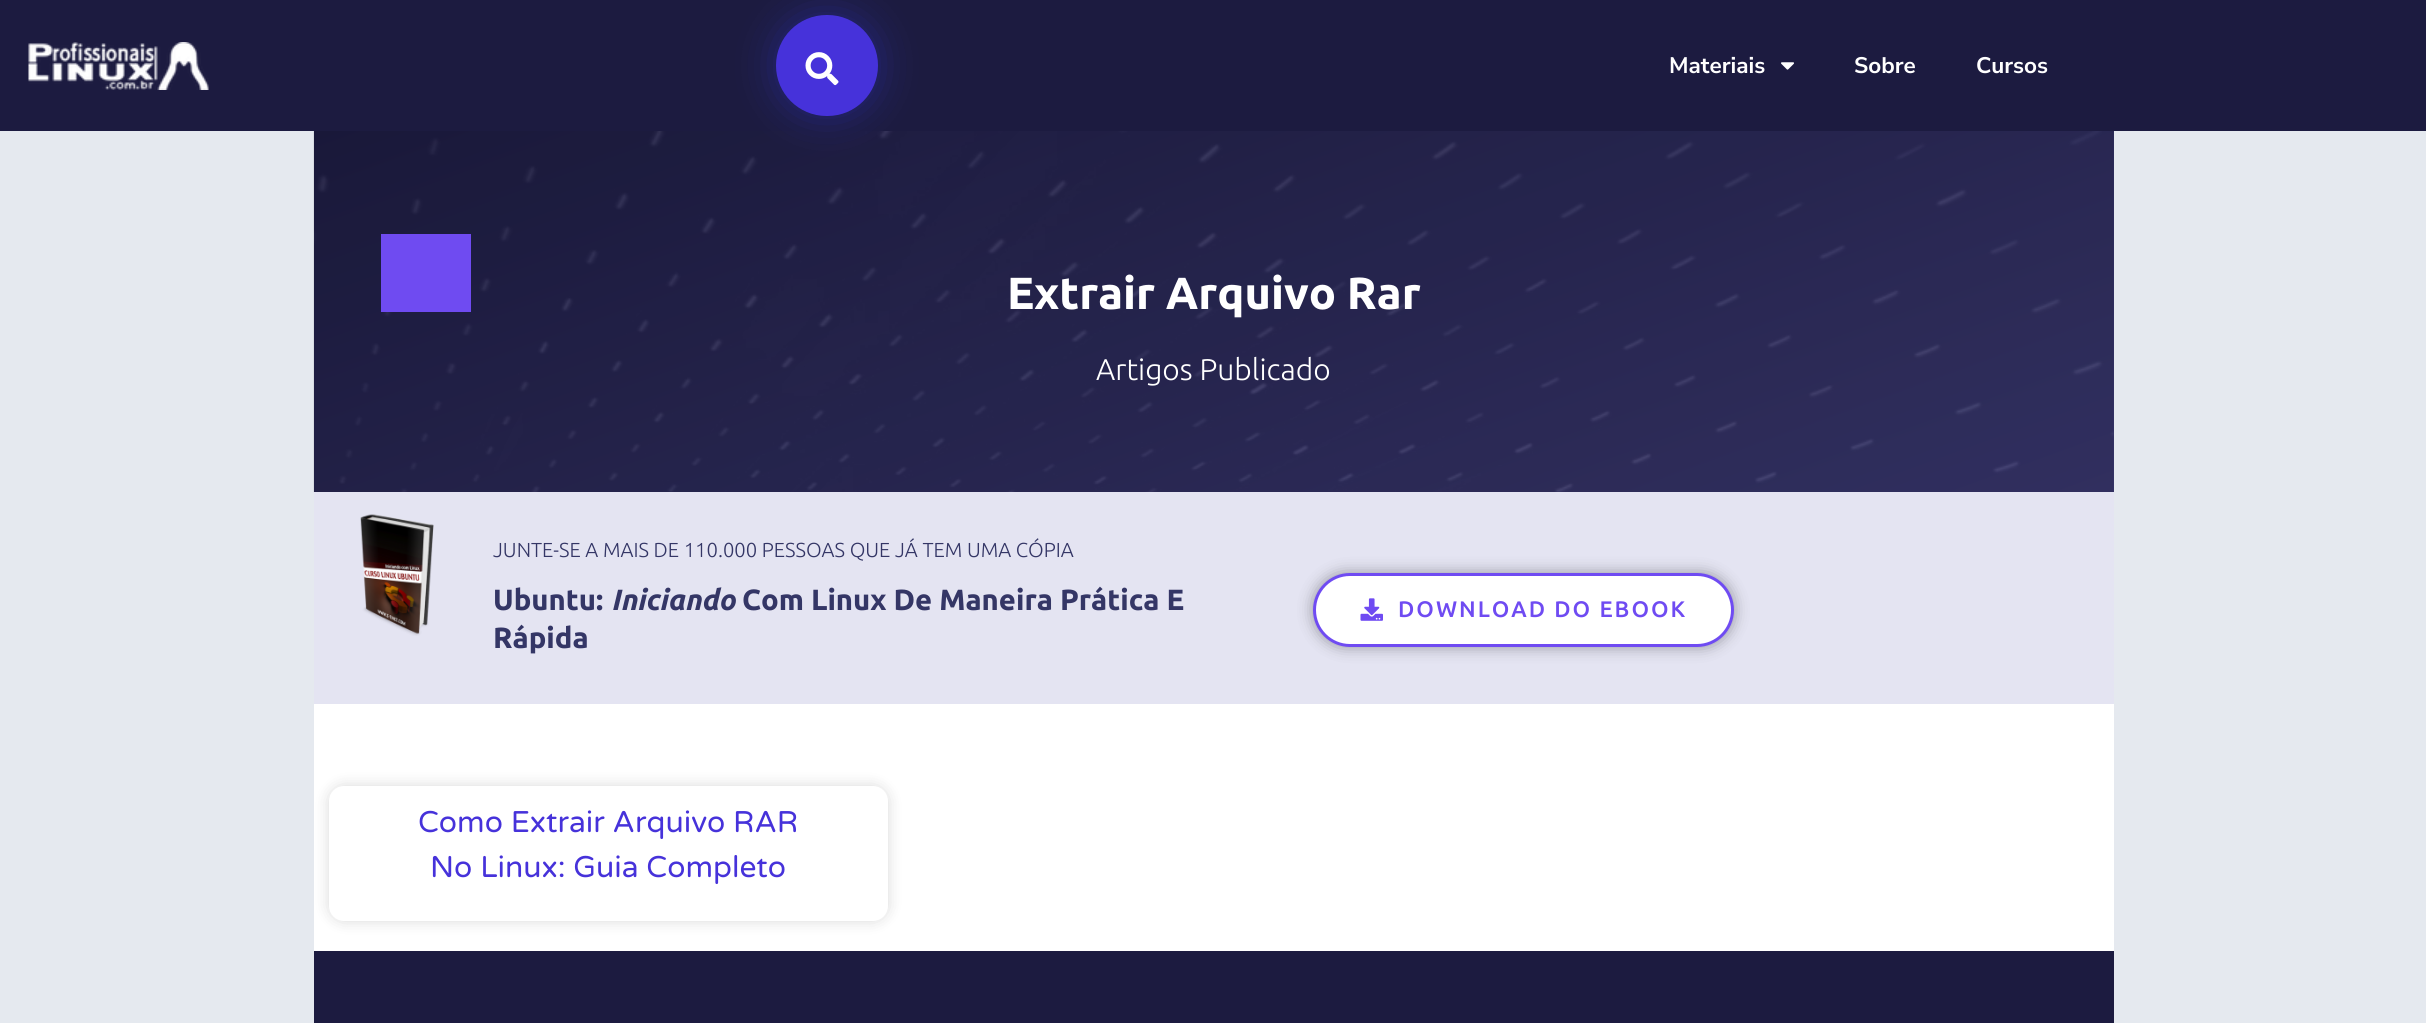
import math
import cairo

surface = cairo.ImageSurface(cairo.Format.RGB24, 2426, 1023)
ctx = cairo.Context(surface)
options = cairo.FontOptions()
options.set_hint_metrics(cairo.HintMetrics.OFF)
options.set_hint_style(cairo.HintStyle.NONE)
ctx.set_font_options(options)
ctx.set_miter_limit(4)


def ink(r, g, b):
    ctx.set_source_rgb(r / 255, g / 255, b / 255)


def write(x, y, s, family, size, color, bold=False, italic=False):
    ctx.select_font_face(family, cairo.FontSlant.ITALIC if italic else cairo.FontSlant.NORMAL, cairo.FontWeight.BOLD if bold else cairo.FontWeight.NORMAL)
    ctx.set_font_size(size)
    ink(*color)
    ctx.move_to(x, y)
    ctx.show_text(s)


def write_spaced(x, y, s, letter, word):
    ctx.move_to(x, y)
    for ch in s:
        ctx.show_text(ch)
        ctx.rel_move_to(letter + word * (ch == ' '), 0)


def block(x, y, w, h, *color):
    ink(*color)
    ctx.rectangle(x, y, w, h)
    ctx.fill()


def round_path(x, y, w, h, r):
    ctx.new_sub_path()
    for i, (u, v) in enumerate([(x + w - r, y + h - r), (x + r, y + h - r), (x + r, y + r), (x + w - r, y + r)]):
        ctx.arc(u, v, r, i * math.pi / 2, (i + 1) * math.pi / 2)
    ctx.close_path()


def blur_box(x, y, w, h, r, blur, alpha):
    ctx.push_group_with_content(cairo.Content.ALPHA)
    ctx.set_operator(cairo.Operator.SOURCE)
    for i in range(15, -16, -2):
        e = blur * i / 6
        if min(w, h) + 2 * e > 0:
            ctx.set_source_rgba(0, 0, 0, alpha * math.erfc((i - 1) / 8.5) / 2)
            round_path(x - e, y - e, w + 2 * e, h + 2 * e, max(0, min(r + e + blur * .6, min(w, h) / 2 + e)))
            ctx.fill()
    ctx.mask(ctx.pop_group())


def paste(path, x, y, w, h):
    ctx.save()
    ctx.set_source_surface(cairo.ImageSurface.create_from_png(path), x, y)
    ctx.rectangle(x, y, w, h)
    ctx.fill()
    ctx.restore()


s1 = dict(family="Nunito Sans", size=22.5, color=(255, 255, 255), bold=True)
s2 = dict(family="Ubuntu", size=45, color=(255, 255, 255), bold=True)
s3 = dict(family="Ubuntu Light", size=30, color=(255, 255, 255))
s4 = dict(family="Ubuntu Light", size=20.25, color=(52, 54, 102))
s5 = dict(family="Ubuntu", size=29.25, color=(52, 54, 102), bold=True)
s6 = dict(family="Ubuntu", size=29.25, color=(52, 54, 102), bold=True, italic=True)
s7 = dict(family="Varela Round", size=30, color=(70, 50, 218))

ink(229, 233, 239)
ctx.paint()
block(0, 0, 2426, 131, 28, 27, 64)
paste("pic1.png", 28, 42, 181, 48)
gradient = cairo.LinearGradient(1050, -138, 1377, 760)
gradient.add_color_stop_rgba(0, 0.11, 0.106, 0.251, 1)
gradient.add_color_stop_rgba(1, 0.216, 0.208, 0.42, 1)
ctx.set_source(gradient)
ctx.rectangle(314, 131, 1800, 361)
ctx.fill()
paste("pic4.png", 313, 131, 1801, 361)
ink(53, 56, 240)
blur_box(776, 15, 102, 101, 50.5, 19, 0.35)
ink(70, 50, 218)
round_path(776, 15, 102, 101, 50.5)
ctx.fill()
paste("pic2.png", 805, 52, 34, 34)
write(1669, 73, "Materiais", **s1)
paste("pic3.png", 1781, 62, 13, 8)
write(1854, 73, "Sobre", **s1)
write(1976, 73, "Cursos", **s1)
block(381, 234, 90, 75, 111, 75, 241)
block(381, 309, 90, 3, 111, 75, 242)
write(1007, 309, "Extrair Arquivo Rar", **s2)
write(1096, 380, "Artigos Publicado", **s3)
block(314, 492, 1800, 212, 228, 228, 242)
paste("pic5.png", 360, 514, 74, 122)
write(493, 557, "JUNTE-SE A MAIS DE 110.000 PESSOAS QUE JÁ TEM UMA CÓPIA", **s4)
write(493, 610, "Ubuntu:", **s5)
write(611, 610, "Iniciando", **s6)
write(742, 610, "Com Linux De Maneira Prática E", **s5)
write(493, 648, "Rápida", **s5)
ink(0, 0, 0)
blur_box(1313, 573, 421, 74, 37, 7.5, 0.35)
ink(255, 255, 255)
round_path(1314.5, 574.5, 418, 71, 35.5)
ctx.fill_preserve()
ink(111, 75, 242)
ctx.set_line_width(3)
ctx.stroke()
paste("pic6.png", 1360, 598, 23, 23)
ctx.select_font_face("Ubuntu Medium")
ctx.set_font_size(22.5)
write_spaced(1398, 617, "DOWNLOAD DO EBOOK", 2, 0)
block(314, 704, 1800, 247, 255, 255, 255)
ink(0, 0, 0)
blur_box(329, 786, 559, 135, 15, 7.5, 0.15)
ink(255, 255, 255)
round_path(329, 786, 559, 135, 15)
ctx.fill()
write(418, 832, "Como Extrair Arquivo RAR", **s7)
write(430, 877, "No Linux: Guia Completo", **s7)
block(314, 951, 1800, 72, 28, 27, 64)
surface.write_to_png("screenshot.png")
